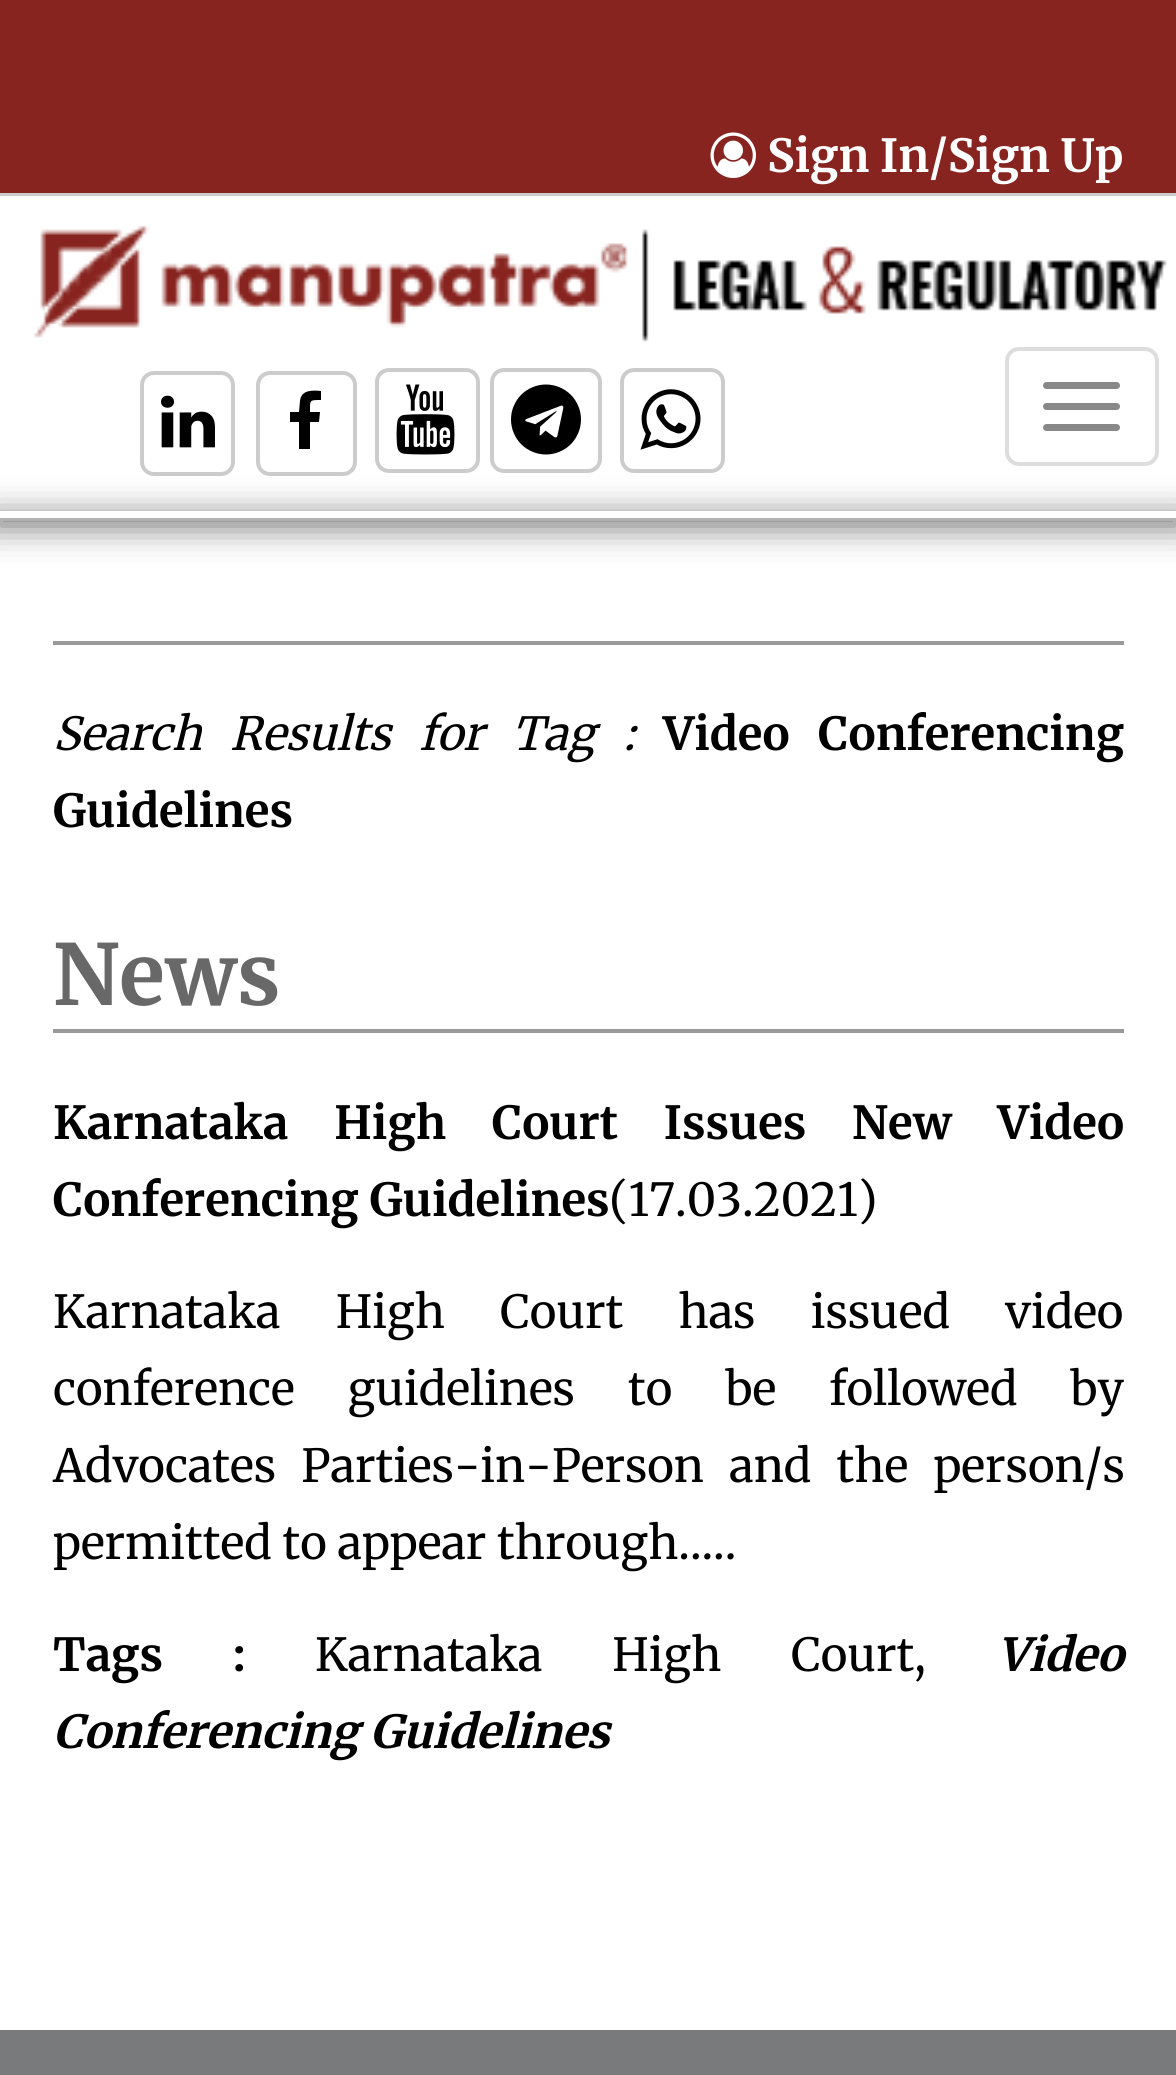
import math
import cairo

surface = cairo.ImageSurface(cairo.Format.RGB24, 1176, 2075)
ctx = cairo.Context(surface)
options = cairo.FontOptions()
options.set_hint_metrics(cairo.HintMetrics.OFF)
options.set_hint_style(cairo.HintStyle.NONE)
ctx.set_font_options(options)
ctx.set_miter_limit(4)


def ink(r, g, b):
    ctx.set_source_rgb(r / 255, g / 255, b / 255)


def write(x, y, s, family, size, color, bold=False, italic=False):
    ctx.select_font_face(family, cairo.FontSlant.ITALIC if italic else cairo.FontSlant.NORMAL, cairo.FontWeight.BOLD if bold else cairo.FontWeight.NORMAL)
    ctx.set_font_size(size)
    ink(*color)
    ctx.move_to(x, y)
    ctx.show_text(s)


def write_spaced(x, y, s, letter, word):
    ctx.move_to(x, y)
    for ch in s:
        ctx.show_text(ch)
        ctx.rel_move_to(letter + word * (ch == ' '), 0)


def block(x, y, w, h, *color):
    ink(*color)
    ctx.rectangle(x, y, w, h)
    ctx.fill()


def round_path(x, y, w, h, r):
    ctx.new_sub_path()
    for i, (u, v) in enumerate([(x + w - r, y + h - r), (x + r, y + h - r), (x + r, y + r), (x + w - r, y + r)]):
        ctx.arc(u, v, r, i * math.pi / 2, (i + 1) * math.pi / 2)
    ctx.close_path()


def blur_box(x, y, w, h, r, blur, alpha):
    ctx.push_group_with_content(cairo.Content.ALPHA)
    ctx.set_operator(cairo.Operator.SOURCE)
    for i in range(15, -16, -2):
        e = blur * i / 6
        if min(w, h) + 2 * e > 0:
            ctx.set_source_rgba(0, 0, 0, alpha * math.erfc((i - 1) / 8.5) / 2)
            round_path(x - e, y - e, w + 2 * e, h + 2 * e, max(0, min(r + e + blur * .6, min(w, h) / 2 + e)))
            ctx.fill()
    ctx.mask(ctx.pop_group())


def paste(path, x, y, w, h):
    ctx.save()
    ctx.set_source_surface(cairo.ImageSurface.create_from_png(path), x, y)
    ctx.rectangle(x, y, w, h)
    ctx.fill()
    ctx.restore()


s1 = dict(family="Merriweather", size=45.5, color=(255, 255, 255), bold=True)
s2 = dict(family="Merriweather", size=45.5, color=(0, 0, 0), bold=True)
s3 = dict(family="Merriweather", size=84, color=(104, 104, 104), bold=True)
s4 = dict(family="Merriweather", size=45.5, color=(0, 0, 0))
s5 = dict(family="Merriweather", size=45.5, color=(0, 0, 0), bold=True, italic=True)

ink(255, 255, 255)
ctx.paint()
block(0, 0, 1176, 193, 136, 36, 31)
block(0, 193, 1176, 3, 204, 204, 204)
paste("pic1.png", 710, 132, 46, 46)
write(767, 172, "Sign In/Sign Up", **s1)
paste("pic2.png", 0, 196, 1176, 146)
round_path(142, 373, 91, 101, 12)
ink(204, 204, 204)
ctx.set_line_width(4)
ctx.stroke()
paste("pic3.png", 161, 395, 54, 53)
round_path(258, 373, 97, 101, 12)
ctx.stroke()
ink(0, 0, 0)
ctx.new_path()
ctx.move_to(321, 391)
ctx.line_to(321, 400)
ctx.curve_to(309, 400, 310, 400, 310, 412)
ctx.line_to(320, 412)
ctx.line_to(319, 422)
ctx.line_to(310, 422)
ctx.line_to(310, 449)
ctx.line_to(299, 449)
ctx.line_to(299, 422)
ctx.line_to(290, 422)
ctx.line_to(290, 412)
ctx.line_to(299, 412)
ctx.line_to(300, 401)
ctx.curve_to(301, 390, 312, 390, 321, 391)
ctx.close_path()
ctx.fill()
round_path(377, 370, 101, 101, 12)
ink(204, 204, 204)
ctx.stroke()
paste("pic4.png", 396, 384, 59, 71)
round_path(492, 370, 108, 101, 12)
ctx.stroke()
paste("pic5.png", 511, 384, 70, 71)
round_path(622, 370, 101, 101, 12)
ctx.stroke()
paste("pic6.png", 640, 389, 61, 61)
ctx.save()
ctx.set_fill_rule(cairo.FillRule.EVEN_ODD)
ctx.new_path()
ctx.move_to(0, 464)
ctx.line_to(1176, 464)
ctx.line_to(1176, 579)
ctx.line_to(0, 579)
ctx.close_path()
ctx.move_to(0, 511)
ctx.line_to(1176, 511)
ctx.line_to(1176, 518)
ctx.line_to(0, 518)
ctx.close_path()
ctx.clip()
ink(50, 50, 50)
blur_box(0, 518, 1176, 7, 0, 17.5, 0.75)
ctx.restore()
round_path(1007, 349, 150, 115, 12)
ink(221, 221, 221)
ctx.stroke()
ink(136, 136, 136)
round_path(1043, 382, 77, 7, 3.5)
ctx.fill()
round_path(1043, 403, 77, 7, 3.5)
ctx.fill()
round_path(1043, 424, 77, 7, 3.5)
ctx.fill()
block(53, 641, 1071, 4, 153, 153, 153)
ctx.select_font_face("Merriweather", cairo.FontSlant.ITALIC)
ink(0, 0, 0)
write_spaced(53, 750, "Search Results for Tag :", 0, 17.5)
ctx.select_font_face("Merriweather", cairo.FontSlant.NORMAL, cairo.FontWeight.BOLD)
write_spaced(663, 750, "Video Conferencing", 0, 18)
write(53, 827, "Guidelines", **s2)
block(53, 1029, 1071, 4, 153, 153, 153)
write(53, 1005, "News", **s3)
ctx.set_font_size(45.5)
ink(0, 0, 0)
write_spaced(53, 1139, "Karnataka High Court Issues New Video", 0, 35)
write(53, 1216, "Conferencing Guidelines", **s2)
write(609, 1216, "(17.03.2021)", **s4)
write_spaced(53, 1328, "Karnataka High Court has issued video", 0, 44.5)
write_spaced(53, 1405, "conference guidelines to be followed by", 0, 42.25)
write_spaced(53, 1482, "Advocates Parties-in-Person and the person/s", 0, 14.5)
write(53, 1559, "permitted to appear through.....", **s4)
ctx.select_font_face("Merriweather", cairo.FontSlant.NORMAL, cairo.FontWeight.BOLD)
write_spaced(53, 1671, "Tags :", 0, 59)
ctx.select_font_face("Merriweather")
write_spaced(315, 1671, "Karnataka High Court,", 0, 59)
write(997, 1671, "Video", **s5)
write(53, 1748, "Conferencing Guidelines", **s5)
block(0, 2030, 1176, 45, 120, 122, 124)
surface.write_to_png("screenshot.png")
